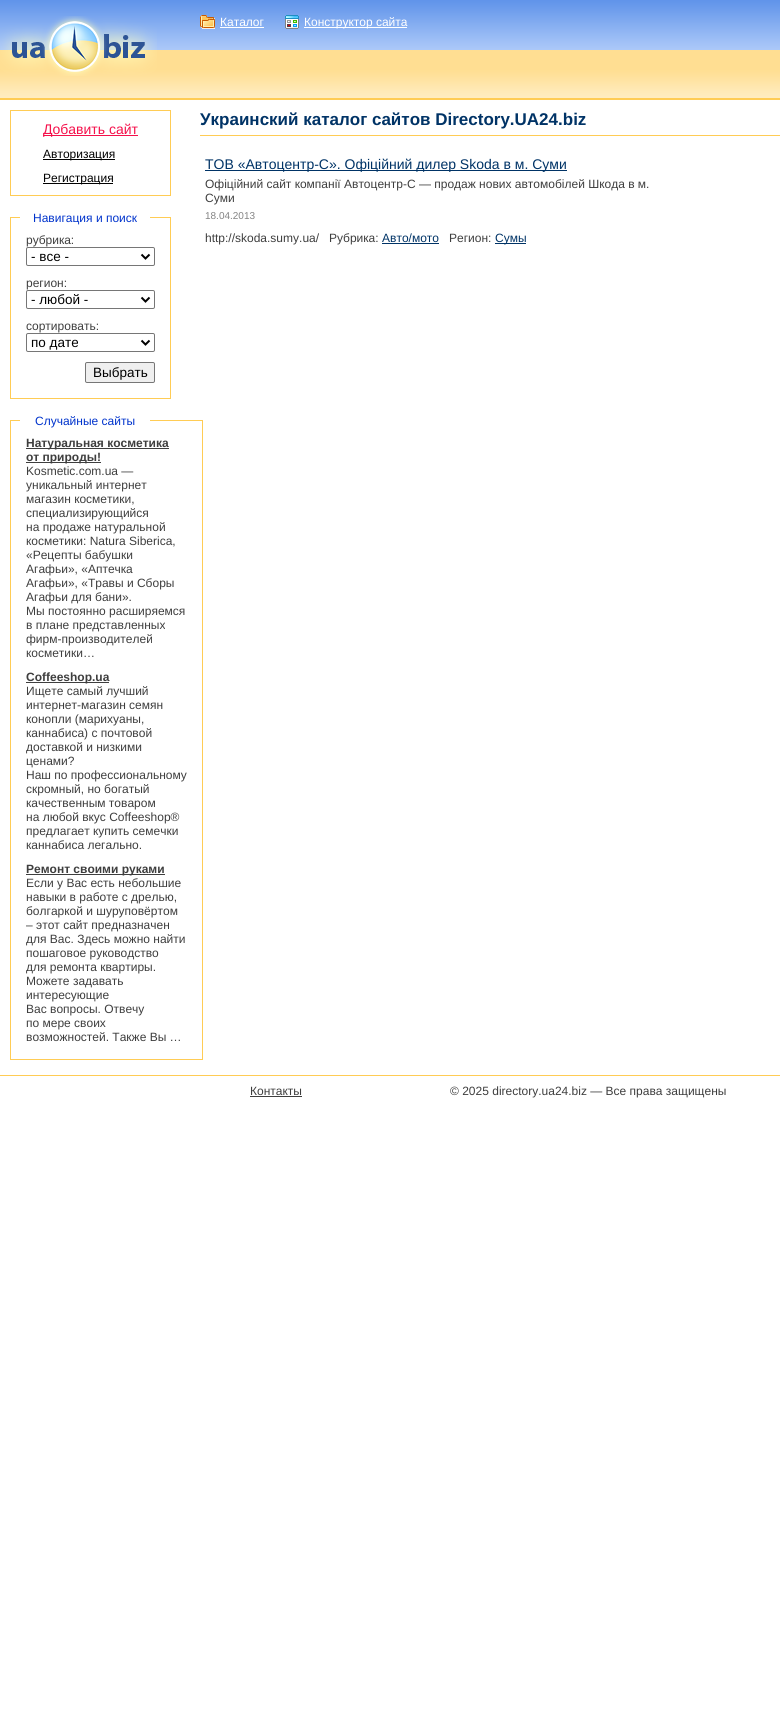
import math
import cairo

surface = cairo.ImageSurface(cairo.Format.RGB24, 780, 1734)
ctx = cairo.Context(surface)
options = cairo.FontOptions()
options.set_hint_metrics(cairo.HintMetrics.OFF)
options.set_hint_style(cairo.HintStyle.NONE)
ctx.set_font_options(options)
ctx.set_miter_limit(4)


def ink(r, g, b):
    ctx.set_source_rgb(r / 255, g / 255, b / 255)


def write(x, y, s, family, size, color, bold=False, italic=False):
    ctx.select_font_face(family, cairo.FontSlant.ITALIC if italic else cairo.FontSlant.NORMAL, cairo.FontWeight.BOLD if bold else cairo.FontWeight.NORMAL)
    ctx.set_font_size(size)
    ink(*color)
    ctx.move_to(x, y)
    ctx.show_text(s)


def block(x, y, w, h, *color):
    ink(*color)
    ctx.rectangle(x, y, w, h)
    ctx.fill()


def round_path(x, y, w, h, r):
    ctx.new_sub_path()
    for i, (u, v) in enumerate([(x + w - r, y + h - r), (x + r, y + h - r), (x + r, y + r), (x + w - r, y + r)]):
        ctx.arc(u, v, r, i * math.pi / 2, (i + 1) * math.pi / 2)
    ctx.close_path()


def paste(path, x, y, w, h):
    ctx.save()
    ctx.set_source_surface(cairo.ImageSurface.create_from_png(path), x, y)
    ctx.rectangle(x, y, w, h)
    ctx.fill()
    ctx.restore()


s1 = dict(family="Liberation Sans", size=12, color=(255, 255, 255))
s2 = dict(family="Liberation Sans", size=14, color=(245, 16, 75))
s3 = dict(family="Liberation Sans", size=12, color=(0, 0, 0))
s4 = dict(family="Liberation Sans", size=12, color=(0, 51, 204))
s5 = dict(family="Liberation Sans", size=12, color=(62, 62, 62))
s6 = dict(family="Liberation Sans", size=13.5, color=(0, 0, 0))
s7 = dict(family="Liberation Sans", size=12, color=(62, 62, 62), bold=True)
s8 = dict(family="Liberation Sans", size=17, color=(0, 51, 102), bold=True)
s9 = dict(family="Liberation Sans", size=14, color=(0, 51, 102))
s10 = dict(family="Liberation Sans", size=10, color=(131, 131, 131))
s11 = dict(family="Liberation Sans", size=12, color=(0, 51, 102))

ink(255, 255, 255)
ctx.paint()
paste("pic2.png", 0, 0, 780, 50)
paste("pic5.png", 0, 50, 780, 50)
paste("pic1.png", 0, 16, 157, 60)
paste("pic3.png", 200, 15, 15, 14)
write(220, 26, "Каталог", **s1)
block(220, 27, 44, 1, 255, 255, 255)
paste("pic4.png", 285, 15, 14, 14)
block(304, 27, 103, 1, 255, 255, 255)
write(304, 26, "Конструктор сайта", **s1)
block(10, 110, 161, 1, 255, 204, 85)
block(170, 110, 1, 86, 255, 204, 85)
block(10, 195, 161, 1, 255, 204, 85)
block(10, 110, 1, 86, 255, 204, 85)
block(43, 135, 95, 1, 245, 16, 75)
write(43, 134, "Добавить сайт", **s2)
block(43, 159, 72, 1, 0, 0, 0)
write(43, 158, "Авторизация", **s3)
block(43, 183, 70, 1, 0, 0, 0)
write(43, 182, "Регистрация", **s3)
block(10, 217, 161, 1, 255, 204, 85)
block(20, 217, 130, 1, 255, 255, 255)
write(33, 222, "Навигация и поиск", **s4)
block(170, 217, 1, 182, 255, 204, 85)
block(10, 398, 161, 1, 255, 204, 85)
block(10, 217, 1, 182, 255, 204, 85)
write(26, 244, "рубрика:", **s5)
round_path(26.5, 247.5, 128, 18, 1.5)
ink(118, 118, 118)
ctx.set_line_width(1)
ctx.stroke()
ctx.new_path()
ctx.move_to(141.5, 254.5)
ctx.line_to(145.5, 258.5)
ctx.line_to(149.5, 254.5)
ink(0, 0, 0)
ctx.set_line_width(2)
ctx.stroke()
write(31, 261, "- все -", **s6)
write(26, 287, "регион:", **s5)
round_path(26.5, 290.5, 128, 18, 1.5)
ink(118, 118, 118)
ctx.set_line_width(1)
ctx.stroke()
ctx.new_path()
ctx.move_to(141.5, 297.5)
ctx.line_to(145.5, 301.5)
ctx.line_to(149.5, 297.5)
ink(0, 0, 0)
ctx.set_line_width(2)
ctx.stroke()
write(31, 304, "- любой -", **s6)
write(26, 330, "сортировать:", **s5)
round_path(26.5, 333.5, 128, 18, 1.5)
ink(118, 118, 118)
ctx.set_line_width(1)
ctx.stroke()
ctx.new_path()
ctx.move_to(141.5, 340.5)
ctx.line_to(145.5, 344.5)
ctx.line_to(149.5, 340.5)
ink(0, 0, 0)
ctx.set_line_width(2)
ctx.stroke()
write(31, 347, "по дате", **s6)
ink(239, 239, 239)
round_path(85.5, 362.5, 69, 20, 1.5)
ctx.fill_preserve()
ink(118, 118, 118)
ctx.set_line_width(1)
ctx.stroke()
write(93, 377, "Выбрать", **s6)
block(10, 420, 193, 1, 255, 204, 85)
block(20, 420, 130, 1, 255, 255, 255)
write(35, 425, "Случайные сайты", **s4)
block(202, 420, 1, 640, 255, 204, 85)
block(10, 1059, 193, 1, 255, 204, 85)
block(10, 420, 1, 640, 255, 204, 85)
block(26, 448, 143, 1, 62, 62, 62)
write(26, 447, "Натуральная косметика", **s7)
block(26, 462, 75, 1, 62, 62, 62)
write(26, 461, "от природы!", **s7)
write(26, 475, "Kosmetic.com.ua —", **s5)
write(26, 489, "уникальный интернет", **s5)
write(26, 503, "магазин косметики,", **s5)
write(26, 517, "специализирующийся", **s5)
write(26, 531, "на продаже натуральной", **s5)
write(26, 545, "косметики: Natura Siberica,", **s5)
write(26, 559, "«Рецепты бабушки", **s5)
write(26, 573, "Агафьи», «Аптечка", **s5)
write(26, 587, "Агафьи», «Травы и Сборы", **s5)
write(26, 601, "Агафьи для бани».", **s5)
write(26, 615, "Мы постоянно расширяемся", **s5)
write(26, 629, "в плане представленных", **s5)
write(26, 643, "фирм-производителей", **s5)
write(26, 657, "косметики…", **s5)
block(26, 682, 83, 1, 62, 62, 62)
write(26, 681, "Coffeeshop.ua", **s7)
write(26, 695, "Ищете самый лучший", **s5)
write(26, 709, "интернет-магазин семян", **s5)
write(26, 723, "конопли (марихуаны,", **s5)
write(26, 737, "каннабиса) с почтовой", **s5)
write(26, 751, "доставкой и низкими", **s5)
write(26, 765, "ценами?", **s5)
write(26, 779, "Наш по профессиональному", **s5)
write(26, 793, "скромный, но богатый", **s5)
write(26, 807, "качественным товаром", **s5)
write(26, 821, "на любой вкус Coffeeshop®", **s5)
write(26, 835, "предлагает купить семечки", **s5)
write(26, 849, "каннабиса легально.", **s5)
block(26, 874, 139, 1, 62, 62, 62)
write(26, 873, "Ремонт своими руками", **s7)
write(26, 887, "Если у Вас есть небольшие", **s5)
write(26, 901, "навыки в работе с дрелью,", **s5)
write(26, 915, "болгаркой и шуруповёртом", **s5)
write(26, 929, "– этот сайт предназначен", **s5)
write(26, 943, "для Вас. Здесь можно найти", **s5)
write(26, 957, "пошаговое руководство", **s5)
write(26, 971, "для ремонта квартиры.", **s5)
write(26, 985, "Можете задавать", **s5)
write(26, 999, "интересующие", **s5)
write(26, 1013, "Вас вопросы. Отвечу", **s5)
write(26, 1027, "по мере своих", **s5)
write(26, 1041, "возможностей. Также Вы …", **s5)
block(200, 135, 580, 1, 255, 204, 85)
write(200, 125, "Украинский каталог сайтов Directory.UA24.biz", **s8)
block(205, 170, 362, 1, 0, 51, 102)
write(205, 169, "ТОВ «Автоцентр-С». Офіційний дилер Skoda в м. Суми", **s9)
write(205, 188, "Офіційний сайт компанії Автоцентр-С — продаж нових автомобілей Шкода в м.", **s5)
write(205, 202, "Суми", **s5)
write(205, 219, "18.04.2013", **s10)
write(205, 242, "http://skoda.sumy.ua/", **s5)
write(329, 242, "Рубрика:", **s5)
write(382, 242, "Авто/мото", **s11)
block(382, 243, 57, 1, 0, 51, 102)
write(449, 242, "Регион:", **s5)
block(495, 243, 31, 1, 0, 51, 102)
write(495, 242, "Сумы", **s11)
block(0, 1075, 780, 1, 255, 204, 85)
write(250, 1095, "Контакты", **s5)
block(250, 1096, 52, 1, 62, 62, 62)
write(450, 1095, "© 2025 directory.ua24.biz — Все права защищены", **s5)
surface.write_to_png("screenshot.png")
